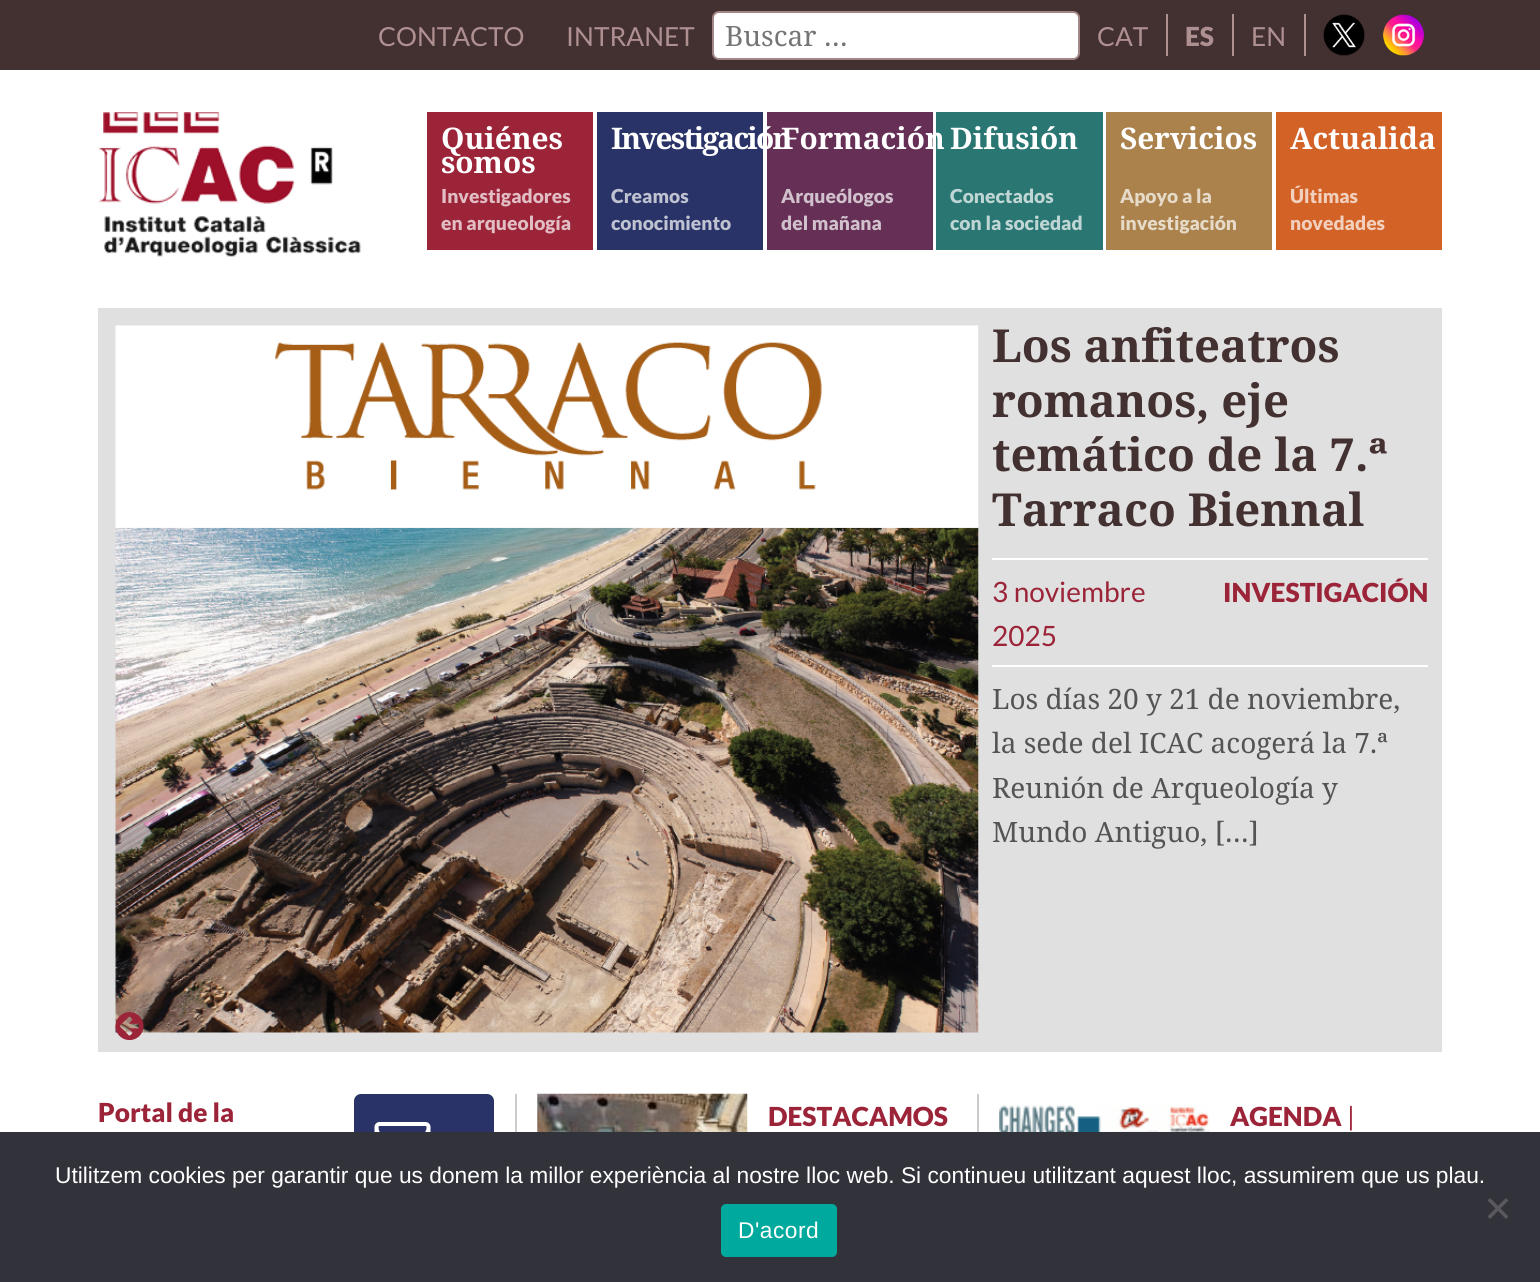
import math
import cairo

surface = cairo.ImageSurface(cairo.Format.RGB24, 1540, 1282)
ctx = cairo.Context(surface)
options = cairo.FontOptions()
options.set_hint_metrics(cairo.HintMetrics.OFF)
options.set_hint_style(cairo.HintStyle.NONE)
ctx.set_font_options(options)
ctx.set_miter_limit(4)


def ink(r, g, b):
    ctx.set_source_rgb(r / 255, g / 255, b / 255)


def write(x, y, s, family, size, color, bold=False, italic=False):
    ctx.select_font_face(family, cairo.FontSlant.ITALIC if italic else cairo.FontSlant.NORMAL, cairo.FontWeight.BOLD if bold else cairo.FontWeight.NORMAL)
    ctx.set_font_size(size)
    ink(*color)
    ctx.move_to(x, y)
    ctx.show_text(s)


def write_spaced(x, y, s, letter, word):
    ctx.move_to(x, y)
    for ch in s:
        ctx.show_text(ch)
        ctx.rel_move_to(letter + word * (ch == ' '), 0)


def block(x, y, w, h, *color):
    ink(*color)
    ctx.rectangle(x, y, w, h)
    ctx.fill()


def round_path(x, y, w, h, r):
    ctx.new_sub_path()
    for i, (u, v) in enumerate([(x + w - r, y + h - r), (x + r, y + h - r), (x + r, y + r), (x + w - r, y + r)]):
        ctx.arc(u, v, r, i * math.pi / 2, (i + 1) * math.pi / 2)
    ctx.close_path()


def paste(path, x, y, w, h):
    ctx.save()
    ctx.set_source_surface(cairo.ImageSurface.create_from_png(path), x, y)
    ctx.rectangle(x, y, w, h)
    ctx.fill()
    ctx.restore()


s1 = dict(family="Lato", size=26.25, color=(175, 144, 144))
s2 = dict(family="Noto Serif", size=28, color=(117, 117, 117))
s3 = dict(family="Lato Black", size=26.25, color=(175, 144, 144))
s4 = dict(family="Noto Serif", size=29.75, color=(255, 255, 255), bold=True)
s5 = dict(family="Lato Black", size=19.25, color=(225, 189, 196))
s6 = dict(family="Lato Black", size=19.25, color=(191, 194, 209))
s7 = dict(family="Lato Black", size=19.25, color=(209, 193, 204))
s8 = dict(family="Lato Black", size=19.25, color=(191, 214, 213))
s9 = dict(family="Lato Black", size=19.25, color=(230, 218, 201))
s10 = dict(family="Lato Black", size=19.25, color=(242, 208, 190))
s11 = dict(family="Noto Serif", size=45.5, color=(67, 48, 48), bold=True)
s12 = dict(family="Lato", size=28, color=(156, 36, 57))
s13 = dict(family="Lato Black", size=26.25, color=(156, 36, 57))
s14 = dict(family="Noto Serif", size=28, color=(84, 84, 84))
s15 = dict(family="Lato", size=26.25, color=(156, 36, 57))
s16 = dict(family="Liberation Sans", size=22.75, color=(255, 255, 255))

ink(255, 255, 255)
ctx.paint()
block(0, 0, 1540, 70, 67, 48, 48)
write(378, 46, "CONTACTO", **s1)
write(566, 46, "INTRANET", **s1)
ink(255, 255, 255)
round_path(713, 12, 366, 47, 6)
ctx.fill_preserve()
ink(164, 134, 134)
ctx.stroke()
write(725, 46, "Buscar …", **s2)
block(1166, 14, 2, 42, 175, 144, 144)
write(1097, 46, "CAT", **s1)
block(1232, 14, 2, 42, 175, 144, 144)
write(1185, 46, "ES", **s3)
block(1304, 14, 2, 42, 175, 144, 144)
write(1251, 46, "EN", **s1)
paste("pic1.png", 1323, 14, 42, 42)
paste("pic2.png", 1383, 14, 41, 42)
paste("pic3.png", 98, 112, 263, 145)
block(427, 112, 166, 138, 156, 36, 57)
write(441, 149, "Quiénes", **s4)
write(441, 173, "somos", **s4)
write(441, 203, "Investigadores", **s5)
write(441, 230, "en arqueología", **s5)
block(597, 112, 166, 138, 41, 51, 103)
block(767, 112, 166, 138, 102, 48, 86)
ctx.select_font_face("Noto Serif", cairo.FontSlant.NORMAL, cairo.FontWeight.BOLD)
ctx.set_font_size(29.75)
ink(255, 255, 255)
write_spaced(611, 149, "Investigación", -1.75, 0)
write(611, 203, "Creamos", **s6)
write(611, 230, "conocimiento", **s6)
block(936, 112, 167, 138, 42, 118, 115)
write(781, 149, "Formación", **s4)
write(781, 203, "Arqueólogos", **s7)
write(781, 230, "del mañana", **s7)
write(950, 149, "Difusión", **s4)
write(950, 203, "Conectados", **s8)
write(950, 230, "con la sociedad", **s8)
block(1106, 112, 166, 138, 171, 130, 76)
write(1120, 149, "Servicios", **s4)
write(1120, 203, "Apoyo a la", **s9)
write(1120, 230, "investigación", **s9)
block(1276, 112, 166, 138, 211, 98, 39)
write(1290, 149, "Actualida", **s4)
write(1290, 203, "Últimas", **s10)
write(1290, 230, "novedades", **s10)
block(98, 308, 1344, 744, 224, 224, 224)
paste("pic4.png", 115, 325, 864, 708)
write(992, 362, "Los anfiteatros", **s11)
write(992, 417, "romanos, eje", **s11)
write(992, 471, "temático de la 7.ª", **s11)
write(992, 526, "Tarraco Biennal", **s11)
block(992, 558, 436, 2, 255, 255, 255)
block(992, 665, 436, 2, 255, 255, 255)
write(992, 602, "3 noviembre", **s12)
write(992, 646, "2025", **s12)
write(1223, 602, "INVESTIGACIÓN", **s13)
write(992, 709, "Los días 20 y 21 de noviembre,", **s14)
write(992, 753, "la sede del ICAC acogerá la 7.ª", **s14)
write(992, 798, "Reunión de Arqueología y", **s14)
write(992, 842, "Mundo Antiguo, […]", **s14)
paste("pic5.png", 115, 1012, 29, 29)
write(98, 1122, "Portal de la", **s13)
ink(41, 51, 103)
round_path(354, 1094, 140, 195, 7)
ctx.fill()
paste("pic6.png", 374, 1122, 57, 10)
block(977, 1094, 2, 38, 204, 204, 204)
block(515, 1094, 2, 38, 204, 204, 204)
paste("pic7.png", 537, 1093, 211, 39)
write(768, 1126, "DESTACAMOS", **s13)
paste("pic8.png", 999, 1105, 211, 27)
write(1230, 1126, "AGENDA", **s13)
write(1347, 1126, "|", **s15)
block(0, 1132, 1540, 150, 50, 50, 58)
write(55, 1183, "Utilitzem cookies per garantir que us donem la millor experiència al nostre lloc web. Si continueu utilitzant aquest lloc, assumirem que us plau.", **s16)
ink(89, 89, 93)
ctx.new_path()
ctx.move_to(1506, 1198)
ctx.line_to(1508.5, 1200.5)
ctx.line_to(1490, 1219)
ctx.line_to(1487.5, 1216.5)
ctx.close_path()
ctx.fill()
ctx.new_path()
ctx.move_to(1487.5, 1200.5)
ctx.line_to(1490, 1198)
ctx.line_to(1508.5, 1216.5)
ctx.line_to(1506, 1219)
ctx.close_path()
ctx.fill()
ink(0, 169, 157)
round_path(721, 1204, 116, 53, 5)
ctx.fill()
ink(255, 255, 255)
write_spaced(738, 1238, "D'acord", 0.5, 0)
surface.write_to_png("screenshot.png")
